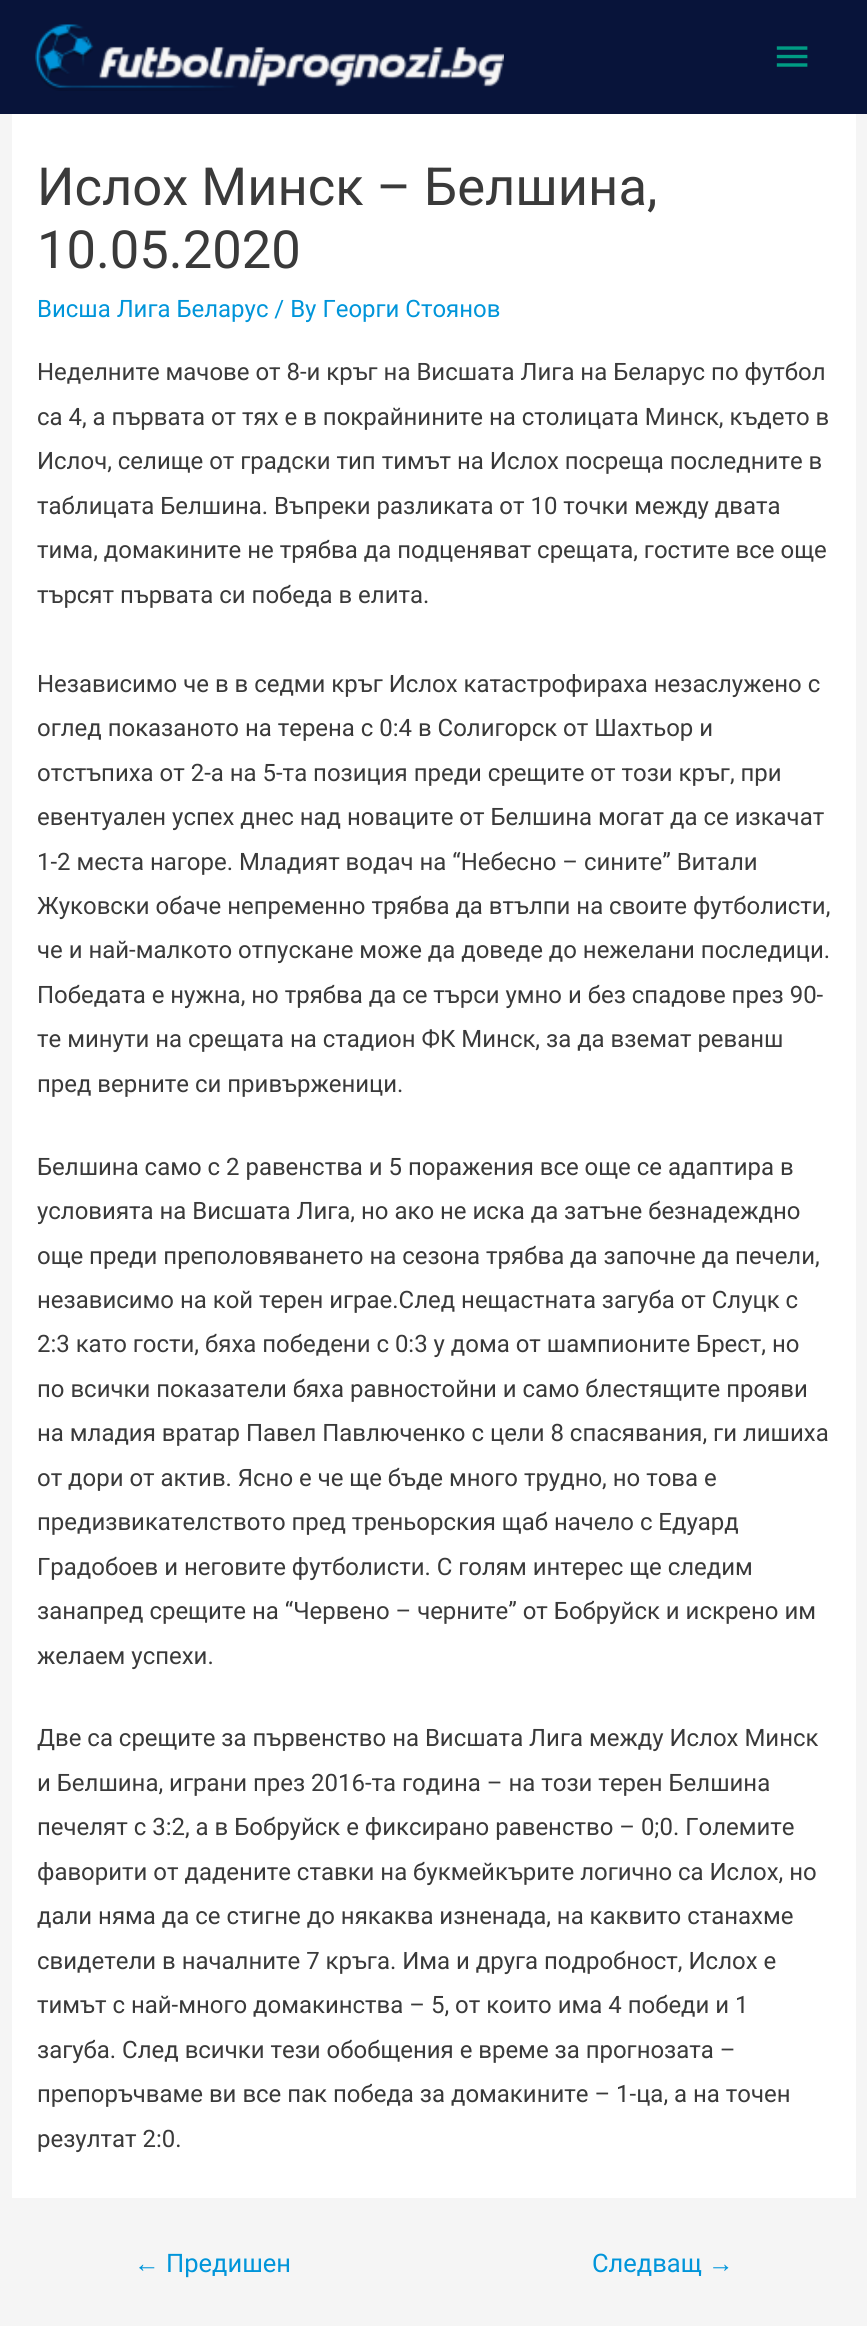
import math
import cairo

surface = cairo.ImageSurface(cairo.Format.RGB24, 867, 2326)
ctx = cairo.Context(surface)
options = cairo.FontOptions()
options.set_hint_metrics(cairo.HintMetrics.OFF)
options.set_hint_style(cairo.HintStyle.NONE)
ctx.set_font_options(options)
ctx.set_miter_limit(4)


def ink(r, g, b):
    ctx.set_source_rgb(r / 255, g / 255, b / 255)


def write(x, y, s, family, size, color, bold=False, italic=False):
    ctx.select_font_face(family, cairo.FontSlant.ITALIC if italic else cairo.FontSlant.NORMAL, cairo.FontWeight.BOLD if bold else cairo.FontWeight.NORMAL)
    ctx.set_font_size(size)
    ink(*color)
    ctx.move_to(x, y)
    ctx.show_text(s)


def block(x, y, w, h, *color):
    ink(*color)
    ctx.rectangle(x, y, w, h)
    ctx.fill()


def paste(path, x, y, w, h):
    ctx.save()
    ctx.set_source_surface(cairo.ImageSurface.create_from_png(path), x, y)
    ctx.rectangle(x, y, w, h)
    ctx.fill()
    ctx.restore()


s1 = dict(family="Roboto", size=52.5, color=(58, 58, 58))
s2 = dict(family="Roboto", size=23.95, color=(0, 149, 218))
s3 = dict(family="Roboto", size=23.95, color=(58, 58, 58))
s4 = dict(family="Liberation Sans", size=25.5, color=(0, 149, 218))
s5 = dict(family="Roboto", size=25.5, color=(0, 149, 218))

ink(245, 245, 245)
ctx.paint()
block(0, 0, 867, 114, 8, 20, 58)
paste("pic1.png", 35, 24, 469, 67)
paste("pic2.png", 776, 46, 32, 21)
block(12, 114, 844, 2084, 255, 255, 255)
write(37, 205, "Ислох Минск – Белшина,", **s1)
write(37, 268, "10.05.2020", **s1)
write(37, 317, "Висша Лига Беларус / By Георги Стоянов", **s2)
write(37, 380, "Неделните мачове от 8-и кръг на Висшата Лига на Беларус по футбол", **s3)
write(37, 425, "са 4, а първата от тях е в покрайнините на столицата Минск, където в", **s3)
write(37, 469, "Ислоч, селище от градски тип тимът на Ислох посреща последните в", **s3)
write(37, 514, "таблицата Белшина. Въпреки разликата от 10 точки между двата", **s3)
write(37, 558, "тима, домакините не трябва да подценяват срещата, гостите все още", **s3)
write(37, 603, "търсят първата си победа в елита.", **s3)
write(37, 692, "Независимо че в в седми кръг Ислох катастрофираха незаслужено с", **s3)
write(37, 736, "оглед показаното на терена с 0:4 в Солигорск от Шахтьор и", **s3)
write(37, 781, "отстъпиха от 2-а на 5-та позиция преди срещите от този кръг, при", **s3)
write(37, 825, "евентуален успех днес над новаците от Белшина могат да се изкачат", **s3)
write(37, 870, "1-2 места нагоре. Младият водач на “Небесно – сините” Витали", **s3)
write(37, 914, "Жуковски обаче непременно трябва да втълпи на своите футболисти,", **s3)
write(37, 958, "че и най-малкото отпускане може да доведе до нежелани последици.", **s3)
write(37, 1003, "Победата е нужна, но трябва да се търси умно и без спадове през 90-", **s3)
write(37, 1047, "те минути на срещата на стадион ФК Минск, за да вземат реванш", **s3)
write(37, 1092, "пред верните си привърженици.", **s3)
write(37, 1175, "Белшина само с 2 равенства и 5 поражения все още се адаптира в", **s3)
write(37, 1219, "условията на Висшата Лига, но ако не иска да затъне безнадеждно", **s3)
write(37, 1264, "още преди преполовяването на сезона трябва да започне да печели,", **s3)
write(37, 1308, "независимо на кой терен играе.След нещастната загуба от Слуцк с", **s3)
write(37, 1352, "2:3 като гости, бяха победени с 0:3 у дома от шампионите Брест, но", **s3)
write(37, 1397, "по всички показатели бяха равностойни и само блестящите прояви", **s3)
write(37, 1441, "на младия вратар Павел Павлюченко с цели 8 спасявания, ги лишиха", **s3)
write(37, 1486, "от дори от актив. Ясно е че ще бъде много трудно, но това е", **s3)
write(37, 1530, "предизвикателството пред треньорския щаб начело с Едуард", **s3)
write(37, 1575, "Градобоев и неговите футболисти. С голям интерес ще следим", **s3)
write(37, 1619, "занапред срещите на “Червено – черните” от Бобруйск и искрено им", **s3)
write(37, 1664, "желаем успехи.", **s3)
write(37, 1746, "Две са срещите за първенство на Висшата Лига между Ислох Минск", **s3)
write(37, 1791, "и Белшина, играни през 2016-та година – на този терен Белшина", **s3)
write(37, 1835, "печелят с 3:2, а в Бобруйск е фиксирано равенство – 0;0. Големите", **s3)
write(37, 1880, "фаворити от дадените ставки на букмейкърите логично са Ислох, но", **s3)
write(37, 1924, "дали няма да се стигне до някаква изненада, на каквито станахме", **s3)
write(37, 1969, "свидетели в началните 7 кръга. Има и друга подробност, Ислох е", **s3)
write(37, 2013, "тимът с най-много домакинства – 5, от които има 4 победи и 1", **s3)
write(37, 2058, "загуба. След всички тези обобщения е време за прогнозата –", **s3)
write(37, 2102, "препоръчваме ви все пак победа за домакините – 1-ца, а на точен", **s3)
write(37, 2147, "резултат 2:0.", **s3)
write(134, 2272, "←", **s4)
write(166, 2272, "Предишен", **s5)
write(592, 2272, "Следващ", **s5)
write(708, 2272, "→", **s4)
surface.write_to_png("screenshot.png")
